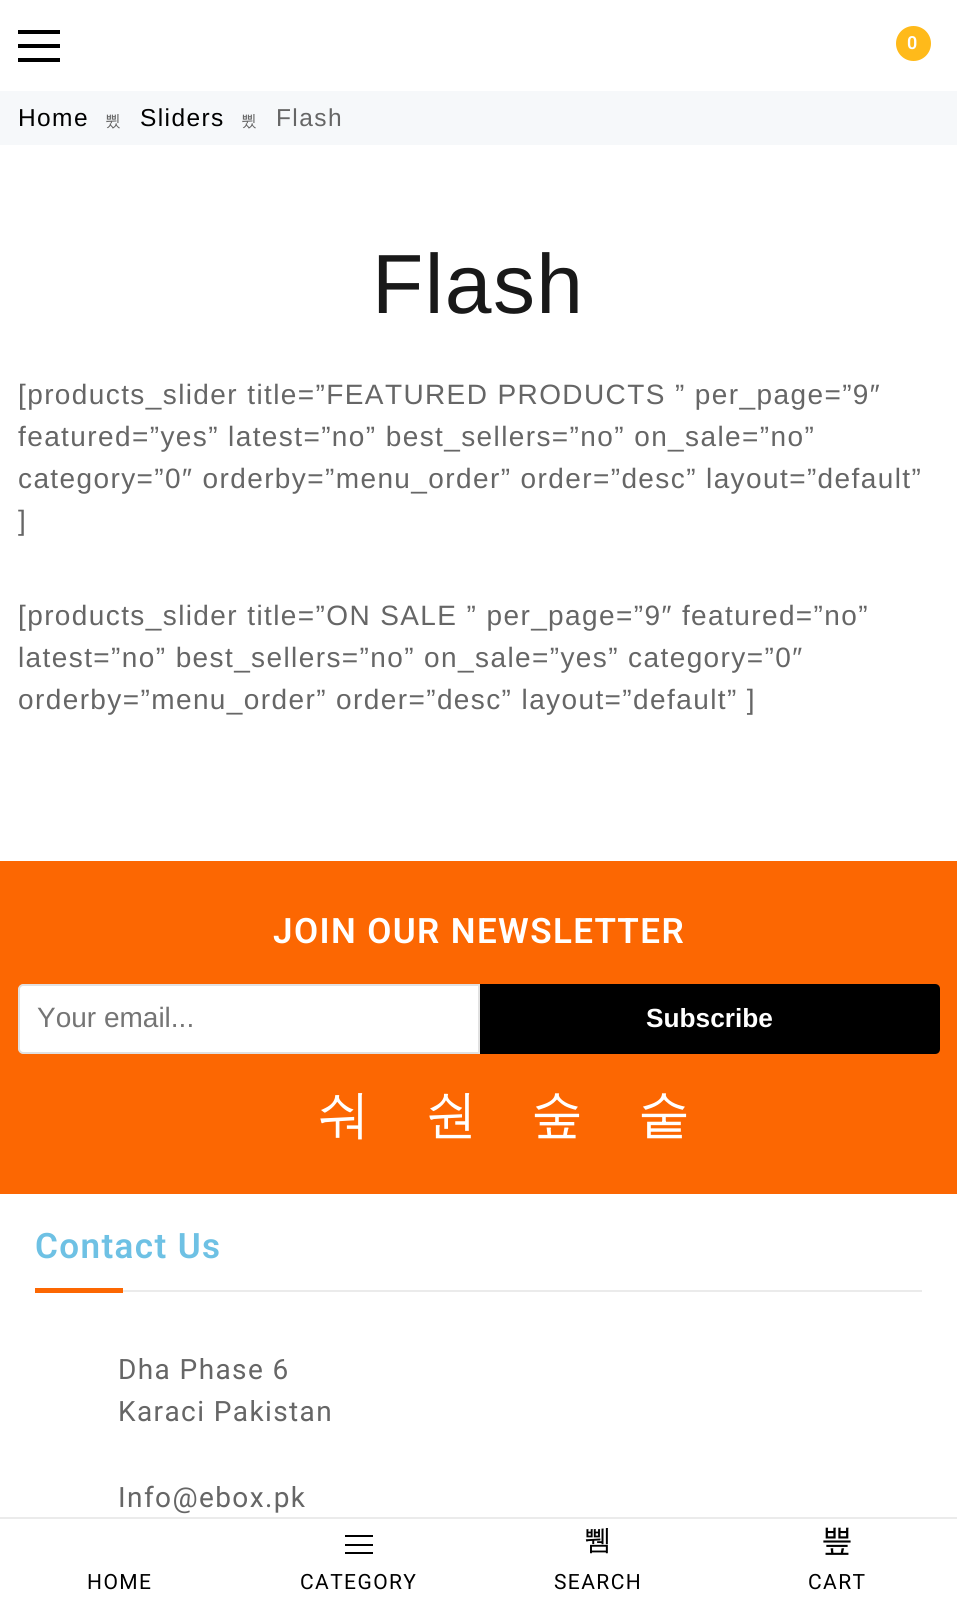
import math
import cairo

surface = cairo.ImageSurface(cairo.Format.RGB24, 957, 1598)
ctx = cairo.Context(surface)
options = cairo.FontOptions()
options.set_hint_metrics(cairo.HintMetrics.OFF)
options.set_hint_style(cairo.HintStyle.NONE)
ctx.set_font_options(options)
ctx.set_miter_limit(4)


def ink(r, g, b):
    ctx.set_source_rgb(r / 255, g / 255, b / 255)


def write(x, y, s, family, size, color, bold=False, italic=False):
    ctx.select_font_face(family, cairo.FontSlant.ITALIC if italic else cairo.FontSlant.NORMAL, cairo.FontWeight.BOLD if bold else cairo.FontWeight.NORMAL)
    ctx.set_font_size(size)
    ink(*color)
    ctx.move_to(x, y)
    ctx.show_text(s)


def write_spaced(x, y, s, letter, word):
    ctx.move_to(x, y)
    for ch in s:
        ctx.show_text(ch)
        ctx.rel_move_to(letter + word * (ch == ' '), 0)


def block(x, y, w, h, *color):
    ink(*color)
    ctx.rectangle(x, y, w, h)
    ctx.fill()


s1 = dict(family="Liberation Sans", size=28, color=(117, 117, 117))
s2 = dict(family="Liberation Sans", size=26.25, color=(255, 255, 255), bold=True)

ink(255, 255, 255)
ctx.paint()
block(18, 44, 42, 4, 0, 0, 0)
block(18, 30, 42, 4, 0, 0, 0)
block(18, 58, 42, 4, 0, 0, 0)
ink(255, 186, 26)
ctx.arc(913.5, 43.5, 17.5, 0, 2 * math.pi)
ctx.fill()
ctx.select_font_face("Roboto SemiBold")
ctx.set_font_size(18)
ink(255, 255, 255)
write_spaced(907, 49, "0", 1.4, 0)
block(0, 91, 957, 54, 246, 248, 250)
ctx.select_font_face("Liberation Sans")
ctx.set_font_size(24.5)
ink(0, 0, 0)
write_spaced(18, 126, "Home", 1.4, 0)
ctx.select_font_face("WenQuanYi Zen Hei Medium")
ctx.set_font_size(16)
ink(102, 102, 102)
write_spaced(105, 126, "쀴", 1.4, 0)
ctx.select_font_face("Liberation Sans")
ctx.set_font_size(24.5)
ink(0, 0, 0)
write_spaced(140, 126, "Sliders", 1.4, 0)
ctx.select_font_face("WenQuanYi Zen Hei Medium")
ctx.set_font_size(16)
ink(102, 102, 102)
write_spaced(241, 126, "쀴", 1.4, 0)
ctx.select_font_face("Liberation Sans")
ctx.set_font_size(24.5)
write_spaced(276, 126, "Flash", 1.4, 0)
ctx.set_font_size(84)
ink(25, 25, 25)
write_spaced(372, 313, "Flash", 1.4, 0)
ctx.set_font_size(28)
ink(102, 102, 102)
write_spaced(18, 404, "[products_slider title=”FEATURED PRODUCTS ” per_page=”9″", 1.4, 0)
write_spaced(18, 446, "featured=”yes” latest=”no” best_sellers=”no” on_sale=”no”", 1.4, 0)
write_spaced(18, 488, "category=”0″ orderby=”menu_order” order=”desc” layout=”default”", 1.4, 0)
write_spaced(18, 530, "]", 1.4, 0)
write_spaced(18, 625, "[products_slider title=”ON SALE ” per_page=”9″ featured=”no”", 1.4, 0)
write_spaced(18, 667, "latest=”no” best_sellers=”no” on_sale=”yes” category=”0″", 1.4, 0)
write_spaced(18, 709, "orderby=”menu_order” order=”desc” layout=”default” ]", 1.4, 0)
block(0, 861, 957, 333, 252, 103, 2)
ctx.select_font_face("Roboto SemiBold")
ctx.set_font_size(35)
ink(255, 255, 255)
write_spaced(273, 943, "JOIN OUR NEWSLETTER", 1.4, 0)
ctx.new_path()
ctx.move_to(23, 985)
ctx.line_to(479, 985)
ctx.line_to(479, 1053)
ctx.line_to(23, 1053)
ctx.curve_to(21, 1053, 19, 1051, 19, 1049)
ctx.line_to(19, 989)
ctx.curve_to(19, 987, 21, 985, 23, 985)
ctx.close_path()
ctx.fill_preserve()
ink(225, 225, 225)
ctx.stroke()
write(37, 1027, "Your email...", **s1)
ink(0, 0, 0)
ctx.new_path()
ctx.move_to(480, 984)
ctx.line_to(935, 984)
ctx.curve_to(938, 984, 940, 986, 940, 989)
ctx.line_to(940, 1049)
ctx.curve_to(940, 1052, 938, 1054, 935, 1054)
ctx.line_to(480, 1054)
ctx.close_path()
ctx.fill()
write(646, 1027, "Subscribe", **s2)
ctx.select_font_face("WenQuanYi Zen Hei Medium")
ctx.set_font_size(52)
write_spaced(318, 1132, "숴", 1.4, 0)
write_spaced(425, 1132, "숸", 1.4, 0)
write_spaced(531, 1132, "숲", 1.4, 0)
write_spaced(638, 1132, "숱", 1.4, 0)
block(123, 1290, 799, 2, 235, 235, 235)
ctx.select_font_face("Roboto SemiBold")
ctx.set_font_size(35)
ink(110, 193, 228)
write_spaced(35, 1258, "Contact Us", 1.4, 0)
block(35, 1288, 88, 5, 252, 103, 2)
ctx.select_font_face("Roboto")
ctx.set_font_size(28)
ink(102, 102, 102)
write_spaced(118, 1379, "Dha Phase 6", 1.4, 0)
write_spaced(118, 1421, "Karaci Pakistan", 1.4, 0)
write_spaced(118, 1507, "Info@ebox.pk", 1.4, 0)
block(0, 1517, 957, 2, 235, 235, 235)
ctx.set_font_size(21)
ink(0, 0, 0)
write_spaced(87, 1589, "HOME", 1.4, 0)
block(345, 1544, 28, 2, 0, 0, 0)
block(345, 1535, 28, 2, 0, 0, 0)
block(345, 1552, 28, 2, 0, 0, 0)
write_spaced(300, 1589, "CATEGORY", 1.4, 0)
ctx.select_font_face("WenQuanYi Zen Hei Medium")
ctx.set_font_size(28)
write_spaced(584, 1549, "쀔", 1.4, 0)
ctx.select_font_face("Roboto")
ctx.set_font_size(21)
write_spaced(554, 1589, "SEARCH", 1.4, 0)
ctx.select_font_face("WenQuanYi Zen Hei Medium")
ctx.set_font_size(32)
write_spaced(821, 1551, "쁲", 1.4, 0)
ctx.select_font_face("Roboto")
ctx.set_font_size(21)
write_spaced(808, 1589, "CART", 1.4, 0)
surface.write_to_png("screenshot.png")
